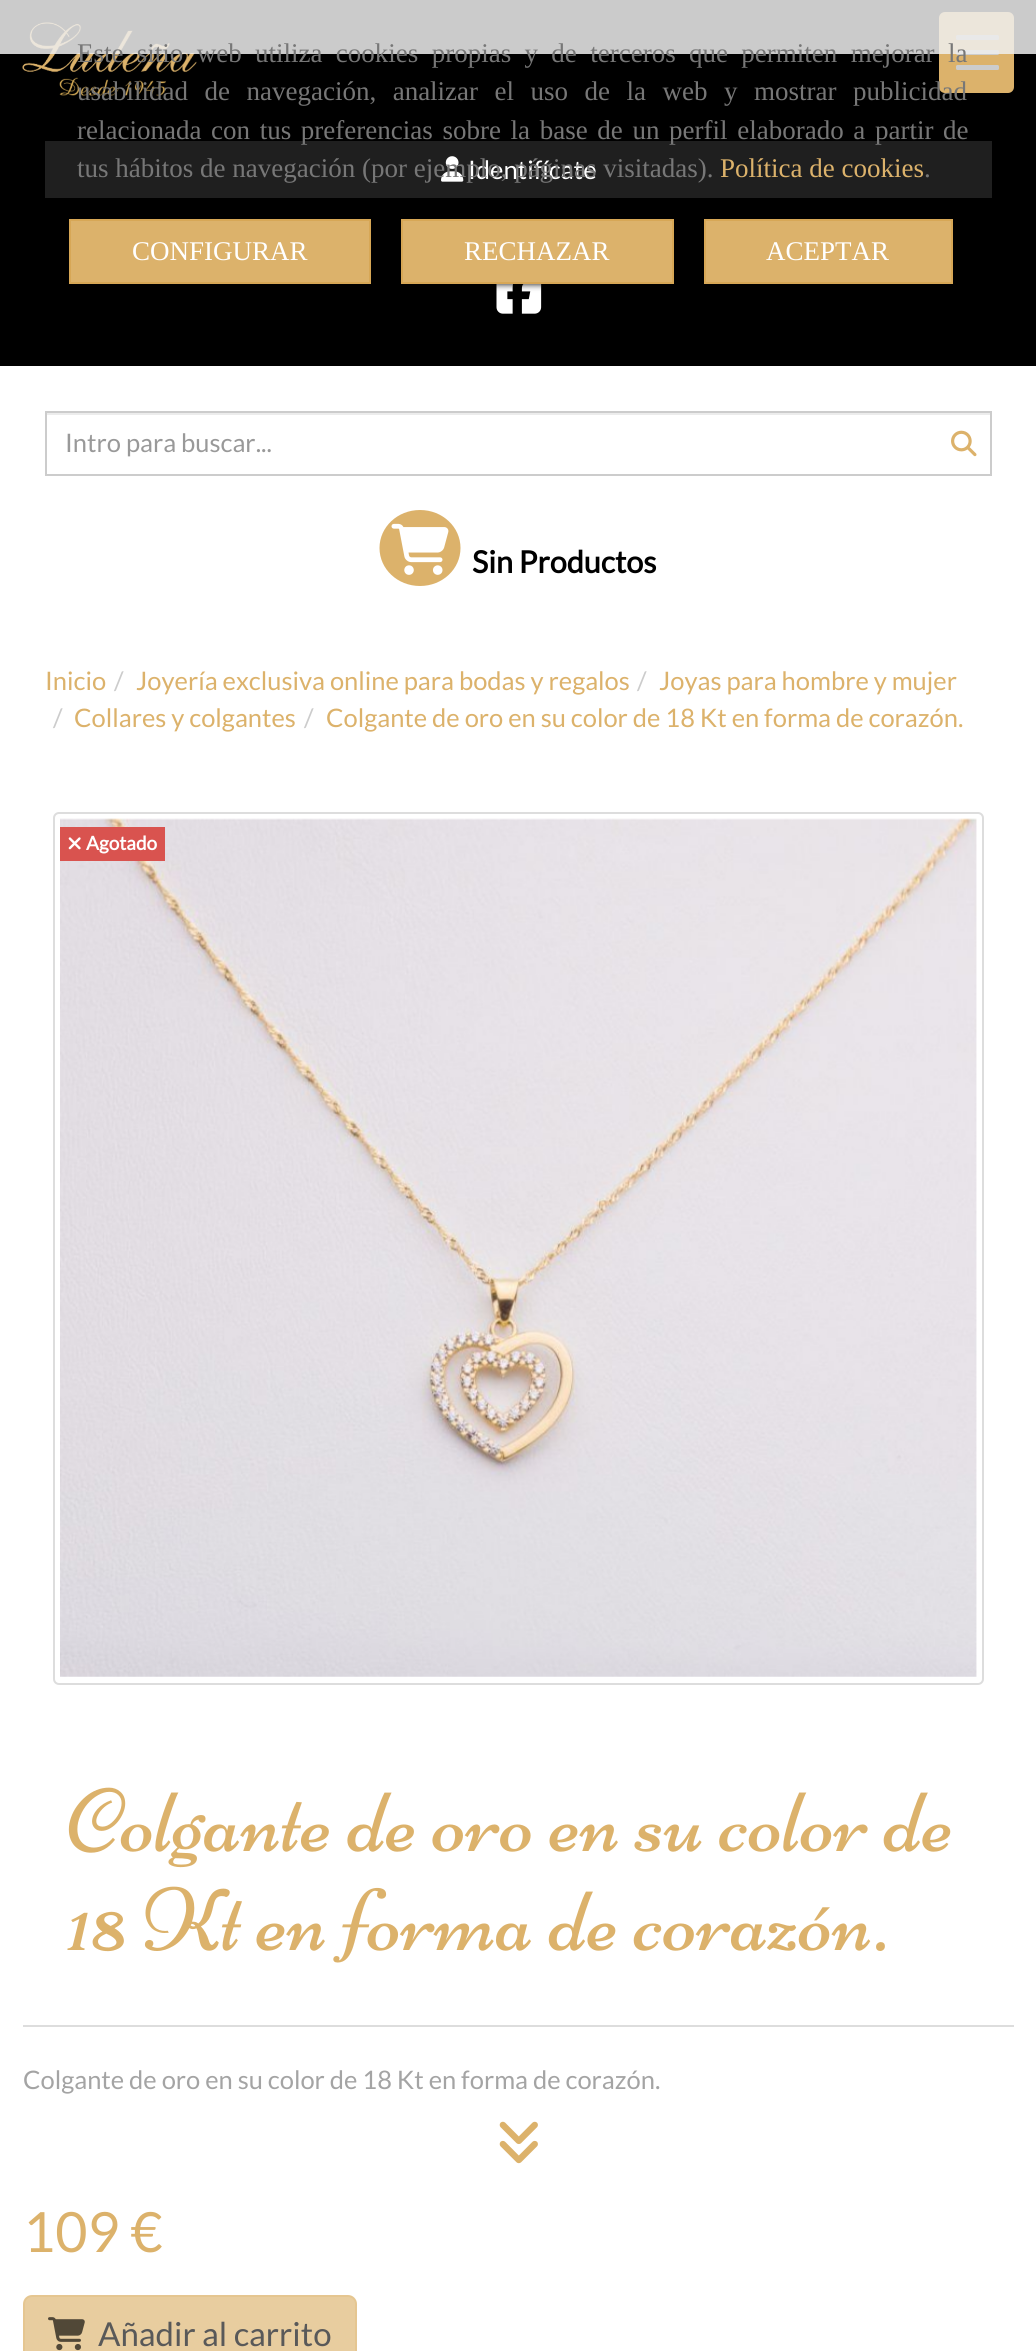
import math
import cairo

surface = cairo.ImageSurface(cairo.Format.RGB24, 1036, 2351)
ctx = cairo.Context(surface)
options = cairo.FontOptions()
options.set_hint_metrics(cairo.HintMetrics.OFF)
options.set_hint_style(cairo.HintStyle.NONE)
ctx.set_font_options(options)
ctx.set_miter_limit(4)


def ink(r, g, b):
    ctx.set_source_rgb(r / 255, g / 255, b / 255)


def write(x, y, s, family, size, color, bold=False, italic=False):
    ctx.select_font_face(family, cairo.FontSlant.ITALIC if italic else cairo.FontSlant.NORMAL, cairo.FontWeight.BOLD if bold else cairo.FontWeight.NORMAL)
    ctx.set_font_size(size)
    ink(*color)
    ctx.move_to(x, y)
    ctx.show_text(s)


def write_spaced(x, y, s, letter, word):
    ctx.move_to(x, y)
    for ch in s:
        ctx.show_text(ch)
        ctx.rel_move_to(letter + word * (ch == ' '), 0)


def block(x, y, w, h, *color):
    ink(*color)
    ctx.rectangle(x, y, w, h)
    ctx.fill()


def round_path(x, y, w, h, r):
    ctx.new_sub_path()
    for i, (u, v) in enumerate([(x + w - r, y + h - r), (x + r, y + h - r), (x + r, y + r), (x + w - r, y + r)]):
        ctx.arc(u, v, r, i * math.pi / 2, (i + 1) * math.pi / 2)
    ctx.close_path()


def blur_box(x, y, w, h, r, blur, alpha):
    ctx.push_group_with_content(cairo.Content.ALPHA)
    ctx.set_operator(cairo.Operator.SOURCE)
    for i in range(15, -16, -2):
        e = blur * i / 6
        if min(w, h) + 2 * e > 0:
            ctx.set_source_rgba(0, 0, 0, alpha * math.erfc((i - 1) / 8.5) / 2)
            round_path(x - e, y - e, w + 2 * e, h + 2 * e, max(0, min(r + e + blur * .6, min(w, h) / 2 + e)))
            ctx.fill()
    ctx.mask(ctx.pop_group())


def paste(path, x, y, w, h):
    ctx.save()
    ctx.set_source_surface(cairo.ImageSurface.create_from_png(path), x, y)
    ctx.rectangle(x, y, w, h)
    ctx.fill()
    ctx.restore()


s1 = dict(family="Lato", size=25.5, color=(255, 255, 255))
s2 = dict(family="Liberation Serif", size=27, color=(119, 119, 119))
s3 = dict(family="Liberation Serif", size=27, color=(220, 178, 107))
s4 = dict(family="Liberation Serif", size=27, color=(255, 255, 255))
s5 = dict(family="Lato", size=25.5, color=(153, 153, 153))
s6 = dict(family="Lato", size=30.5, color=(0, 0, 0), bold=True)
s7 = dict(family="Lato", size=25.5, color=(220, 178, 107))
s8 = dict(family="Lato", size=25.5, color=(204, 204, 204))
s9 = dict(family="Lato", size=19, color=(255, 255, 255), bold=True)
s10 = dict(family="Lato", size=25.5, color=(164, 164, 164))
s11 = dict(family="Lato", size=55.5, color=(220, 178, 107))
s12 = dict(family="Lato", size=33, color=(89, 89, 89))

ink(255, 255, 255)
ctx.paint()
block(0, 0, 1036, 366, 0, 0, 0)
paste("pic1.png", 22, 22, 175, 74)
ink(220, 178, 107)
round_path(939, 12, 75, 81, 6)
ctx.fill()
ink(204, 204, 204)
round_path(956, 50, 43, 5, 1.5)
ctx.fill()
round_path(956, 35, 43, 5, 1.5)
ctx.fill()
ctx.set_source_rgba(0.933, 0.933, 0.933, 0.85)
ctx.rectangle(0, 0, 1036, 54)
ctx.fill()
ink(204, 204, 204)
round_path(956, 65, 43, 5, 1.5)
ctx.fill()
ctx.select_font_face("Liberation Serif")
ctx.set_font_size(27)
ink(119, 119, 119)
write_spaced(77, 62, "Este sitio web utiliza cookies propias y de terceros que permiten mejorar la", 0, 6.6)
write_spaced(77, 100, "usabilidad de navegación, analizar el uso de la web y mostrar publicidad", 0, 9.75)
block(45, 141, 947, 57, 31, 31, 31)
ink(119, 119, 119)
write_spaced(77, 139, "relacionada con tus preferencias sobre la base de un perfil elaborado a partir de", 0, 2.9)
paste("pic2.png", 441, 156, 23, 26)
write(468, 179, "Identifícate", **s1)
write(77, 177, "tus hábitos de navegación (por ejemplo, páginas visitadas).", **s2)
write(720, 177, "Política de cookies", **s3)
write(924, 177, ".", **s2)
ink(220, 178, 107)
ctx.rectangle(70, 220, 300, 63)
ctx.fill_preserve()
ink(215, 167, 86)
ctx.stroke()
write(132, 260, "CONFIGURAR", **s4)
paste("pic3.png", 496, 284, 46, 30)
ink(0, 0, 0)
blur_box(408, 227, 267, 58, 0, 3, 0.75)
ink(220, 178, 107)
ctx.rectangle(402, 220, 271, 63)
ctx.fill_preserve()
ink(215, 167, 86)
ctx.stroke()
write(464, 260, "RECHAZAR", **s4)
ink(220, 178, 107)
ctx.rectangle(705, 220, 247, 63)
ctx.fill_preserve()
ink(215, 167, 86)
ctx.stroke()
write(766, 260, "ACEPTAR", **s4)
block(47, 413, 943, 2, 236, 236, 236)
ctx.rectangle(46, 412, 945, 63)
ink(204, 204, 204)
ctx.stroke()
write(65, 452, "Intro para buscar...", **s5)
paste("pic4.png", 951, 430, 26, 27)
ink(220, 178, 107)
ctx.new_path()
ctx.move_to(420, 510)
ctx.curve_to(442.5, 510, 460.5, 527, 460.5, 548)
ctx.curve_to(460.5, 569, 442.5, 586, 420, 586)
ctx.curve_to(397.5, 586, 379.5, 569, 379.5, 548)
ctx.curve_to(379.5, 527, 397.5, 510, 420, 510)
ctx.close_path()
ctx.fill()
paste("pic5.png", 391, 523, 58, 52)
write(472, 573, "Sin Productos", **s6)
write(45, 690, "Inicio", **s7)
write(114, 690, "/", **s8)
write(136, 690, "Joyería exclusiva online para bodas y regalos", **s7)
write(637, 690, "/", **s8)
write(659, 690, "Joyas para hombre y mujer", **s7)
write(53, 727, "/", **s8)
write(74, 727, "Collares y colgantes", **s7)
write(304, 727, "/", **s8)
write(326, 727, "Colgante de oro en su color de 18 Kt en forma de corazón.", **s7)
round_path(54, 813, 929, 871, 5)
ink(221, 221, 221)
ctx.stroke()
paste("pic6.png", 60, 818, 917, 859)
block(60, 827, 105, 34, 217, 83, 79)
paste("pic7.png", 68, 837, 13, 13)
write(86, 850, "Agotado", **s9)
paste("pic8.png", 68, 1787, 883, 81)
paste("pic9.png", 67, 1886, 818, 77)
block(23, 2025, 991, 2, 221, 221, 221)
write(23, 2089, "Colgante de oro en su color de 18 Kt en forma de corazón.", **s10)
paste("pic10.png", 499, 2121, 39, 43)
write(23, 2252, "109 €", **s11)
ink(232, 205, 159)
round_path(24, 2296, 332, 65, 8)
ctx.fill_preserve()
ink(229, 198, 145)
ctx.stroke()
paste("pic11.png", 48, 2317, 37, 34)
write(98, 2346, "Añadir al carrito", **s12)
surface.write_to_png("screenshot.png")
